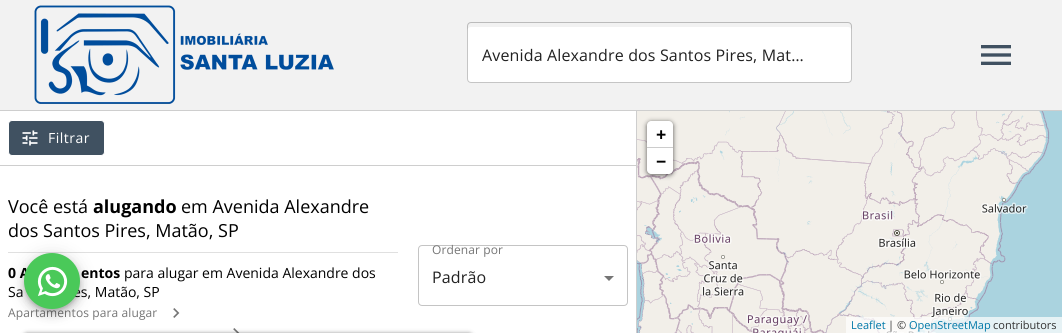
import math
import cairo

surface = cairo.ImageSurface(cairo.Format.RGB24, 1062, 333)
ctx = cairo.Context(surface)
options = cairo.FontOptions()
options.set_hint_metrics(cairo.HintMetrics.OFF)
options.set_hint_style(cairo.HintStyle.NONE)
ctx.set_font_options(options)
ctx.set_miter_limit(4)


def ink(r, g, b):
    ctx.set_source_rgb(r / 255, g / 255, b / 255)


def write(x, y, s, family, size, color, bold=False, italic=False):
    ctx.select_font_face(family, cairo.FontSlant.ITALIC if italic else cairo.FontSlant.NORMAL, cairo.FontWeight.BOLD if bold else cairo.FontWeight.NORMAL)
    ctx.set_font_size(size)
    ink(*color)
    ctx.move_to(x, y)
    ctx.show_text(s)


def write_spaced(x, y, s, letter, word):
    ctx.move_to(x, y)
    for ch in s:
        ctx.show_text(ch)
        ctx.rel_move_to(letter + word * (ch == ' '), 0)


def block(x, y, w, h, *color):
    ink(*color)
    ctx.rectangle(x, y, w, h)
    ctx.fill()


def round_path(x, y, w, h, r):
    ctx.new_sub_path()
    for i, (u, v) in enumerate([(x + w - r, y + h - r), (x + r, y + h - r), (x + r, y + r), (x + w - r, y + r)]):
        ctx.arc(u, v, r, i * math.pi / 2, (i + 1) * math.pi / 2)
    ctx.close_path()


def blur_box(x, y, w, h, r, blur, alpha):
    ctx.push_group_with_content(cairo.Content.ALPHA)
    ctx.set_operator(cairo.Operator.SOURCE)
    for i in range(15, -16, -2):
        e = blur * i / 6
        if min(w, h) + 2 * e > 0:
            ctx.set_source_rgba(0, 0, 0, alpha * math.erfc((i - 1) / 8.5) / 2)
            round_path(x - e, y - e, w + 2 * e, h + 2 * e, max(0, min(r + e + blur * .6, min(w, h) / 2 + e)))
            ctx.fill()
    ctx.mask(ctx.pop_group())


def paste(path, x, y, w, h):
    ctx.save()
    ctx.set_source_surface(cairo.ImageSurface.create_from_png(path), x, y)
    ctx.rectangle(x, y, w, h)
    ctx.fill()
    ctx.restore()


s1 = dict(family="Open Sans", size=18, color=(0, 0, 0))
s2 = dict(family="Open Sans", size=18, color=(0, 0, 0), bold=True)
s3 = dict(family="Open Sans", size=14, color=(0, 0, 0), bold=True)
s4 = dict(family="Open Sans", size=14, color=(0, 0, 0))
s5 = dict(family="Open Sans", size=11, color=(0, 120, 168))
s6 = dict(family="Open Sans", size=11, color=(51, 51, 51))

ink(255, 255, 255)
ctx.paint()
block(0, 0, 1062, 110, 242, 242, 242)
paste("pic1.png", 34, 5, 300, 99)
ink(255, 255, 255)
round_path(467, 27, 385, 56, 4)
ctx.fill()
round_path(467.5, 22.5, 384, 60, 3.5)
ctx.set_source_rgba(0, 0, 0, 0.23)
ctx.set_line_width(1)
ctx.stroke()
ctx.select_font_face("Open Sans")
ctx.set_font_size(16)
ink(33, 33, 33)
write_spaced(482, 61, "Avenida Alexandre dos Santos Pires, Mat…", 0.15, 0)
paste("pic2.png", 981, 45, 30, 20)
block(0, 110, 1062, 1, 206, 206, 206)
block(636, 111, 1, 222, 206, 206, 206)
block(0, 165, 636, 1, 206, 206, 206)
ink(64, 81, 97)
round_path(8.5, 120.5, 96, 35, 3.5)
ctx.fill_preserve()
ink(255, 255, 255)
ctx.stroke()
paste("pic3.png", 22, 130, 16, 16)
ctx.set_font_size(14)
write_spaced(48, 143, "Filtrar", 0.5, 0)
write(8, 213, "Você está", **s1)
write(93, 213, "alugando", **s2)
write(181, 213, "em Avenida Alexandre", **s1)
write(8, 237, "dos Santos Pires, Matão, SP", **s1)
block(8, 252, 390, 1, 224, 224, 224)
write(8, 278, "0 A", **s3)
write(81, 278, "entos", **s3)
write(124, 278, "para alugar em Avenida Alexandre dos", **s4)
write(8, 297, "Sa", **s4)
write(73, 297, "es, Matão, SP", **s4)
ctx.set_font_size(12)
ink(117, 117, 117)
write_spaced(8, 317, "Apartamentos para alugar", 0.1, 0)
paste("pic4.png", 173, 308, 7, 10)
paste("pic5.png", 233, 328, 7, 5)
ctx.new_path()
ctx.move_to(604, 276)
ctx.line_to(609, 281)
ctx.line_to(614, 276)
ctx.close_path()
ctx.fill()
round_path(418.5, 245.5, 209, 60, 3.5)
ink(196, 196, 196)
ctx.stroke()
ink(117, 117, 117)
write_spaced(432, 254, "Ordenar por", 0.1, 0)
ctx.set_font_size(16)
ink(33, 33, 33)
write_spaced(432, 283, "Padrão", 0.15, 0)
paste("pic6.png", 637, 111, 37, 196)
paste("pic7.png", 674, 111, 256, 196)
paste("pic8.png", 930, 111, 132, 196)
paste("pic9.png", 637, 307, 37, 26)
paste("pic10.png", 674, 307, 256, 26)
paste("pic11.png", 930, 307, 132, 26)
ink(0, 0, 0)
blur_box(647, 122, 26, 53, 4, 2.5, 0.65)
ink(255, 255, 255)
ctx.new_path()
ctx.move_to(651, 121)
ctx.line_to(669, 121)
ctx.curve_to(671, 121, 673, 123, 673, 125)
ctx.line_to(673, 148)
ctx.line_to(647, 148)
ctx.line_to(647, 125)
ctx.curve_to(647, 123, 649, 121, 651, 121)
ctx.close_path()
ctx.fill()
block(647, 147, 26, 1, 204, 204, 204)
write(656, 141, "+", **s2)
ink(255, 255, 255)
ctx.new_path()
ctx.move_to(647, 148)
ctx.line_to(673, 148)
ctx.line_to(673, 170)
ctx.curve_to(673, 172, 671, 174, 669, 174)
ctx.line_to(651, 174)
ctx.curve_to(649, 174, 647, 172, 647, 170)
ctx.close_path()
ctx.fill()
write(656, 168, "−", **s2)
ctx.set_source_rgba(1, 1, 1, 0.7)
ctx.rectangle(846, 317, 216, 16)
ctx.fill()
write(851, 329, "Leaflet", **s5)
write(888, 329, "| ©", **s6)
write(909, 329, "OpenStreetMap", **s5)
write(993, 329, "contributors", **s6)
ink(0, 0, 0)
blur_box(24, 254, 56, 56, 28, 9, 0.12)
blur_box(24, 259, 56, 56, 28, 5, 0.14)
blur_box(25, 257, 54, 54, 27, 2.5, 0.2)
ink(74, 201, 89)
ctx.arc(52, 281, 28, 0, 2 * math.pi)
ctx.fill()
paste("pic12.png", 37, 266, 31, 31)
ink(0, 0, 0)
blur_box(23, 333, 450, 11, 5, 2, 0.4)
surface.write_to_png("screenshot.png")
